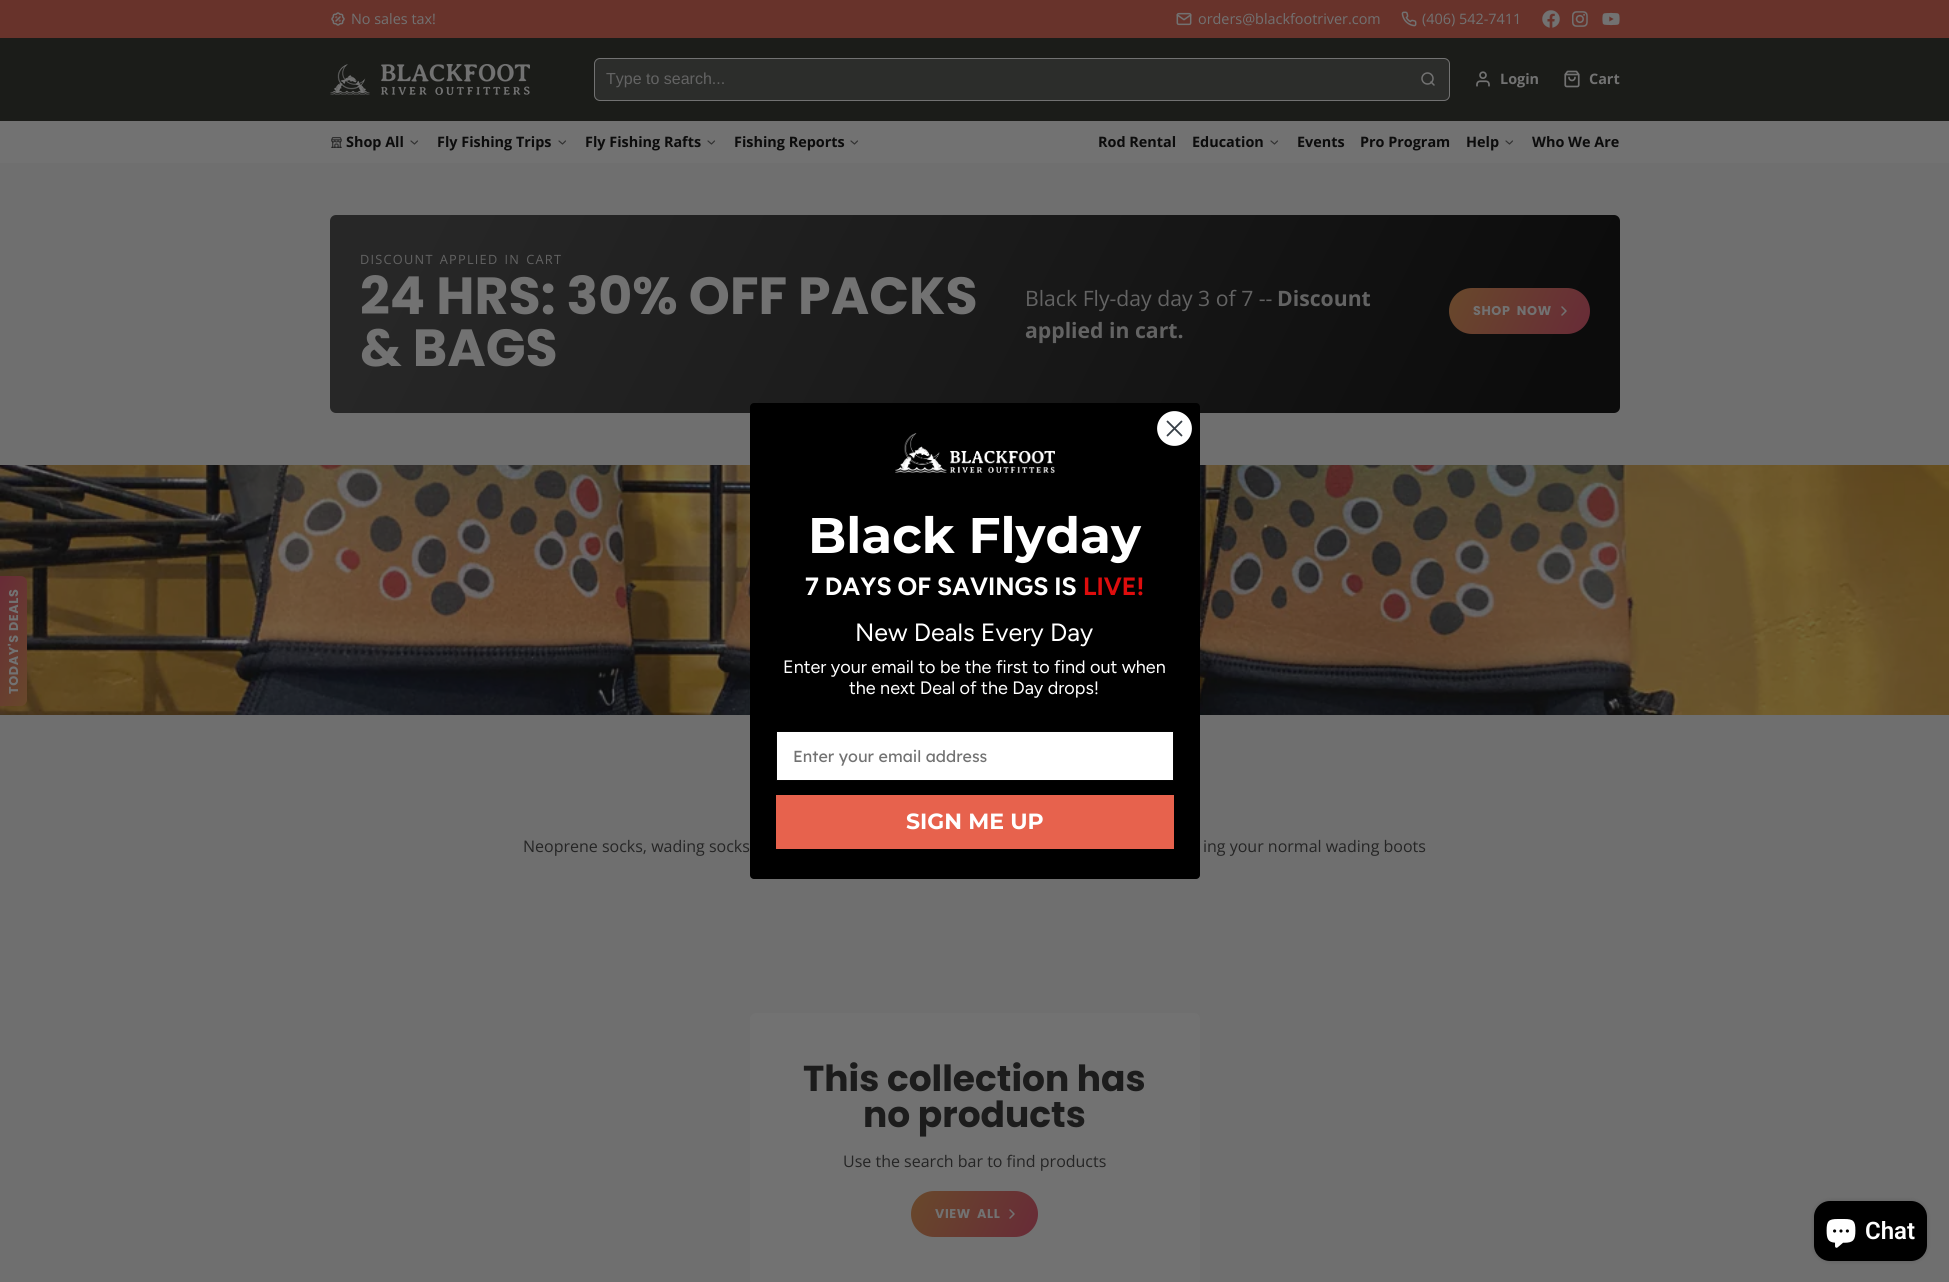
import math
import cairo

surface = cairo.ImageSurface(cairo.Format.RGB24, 1949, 1282)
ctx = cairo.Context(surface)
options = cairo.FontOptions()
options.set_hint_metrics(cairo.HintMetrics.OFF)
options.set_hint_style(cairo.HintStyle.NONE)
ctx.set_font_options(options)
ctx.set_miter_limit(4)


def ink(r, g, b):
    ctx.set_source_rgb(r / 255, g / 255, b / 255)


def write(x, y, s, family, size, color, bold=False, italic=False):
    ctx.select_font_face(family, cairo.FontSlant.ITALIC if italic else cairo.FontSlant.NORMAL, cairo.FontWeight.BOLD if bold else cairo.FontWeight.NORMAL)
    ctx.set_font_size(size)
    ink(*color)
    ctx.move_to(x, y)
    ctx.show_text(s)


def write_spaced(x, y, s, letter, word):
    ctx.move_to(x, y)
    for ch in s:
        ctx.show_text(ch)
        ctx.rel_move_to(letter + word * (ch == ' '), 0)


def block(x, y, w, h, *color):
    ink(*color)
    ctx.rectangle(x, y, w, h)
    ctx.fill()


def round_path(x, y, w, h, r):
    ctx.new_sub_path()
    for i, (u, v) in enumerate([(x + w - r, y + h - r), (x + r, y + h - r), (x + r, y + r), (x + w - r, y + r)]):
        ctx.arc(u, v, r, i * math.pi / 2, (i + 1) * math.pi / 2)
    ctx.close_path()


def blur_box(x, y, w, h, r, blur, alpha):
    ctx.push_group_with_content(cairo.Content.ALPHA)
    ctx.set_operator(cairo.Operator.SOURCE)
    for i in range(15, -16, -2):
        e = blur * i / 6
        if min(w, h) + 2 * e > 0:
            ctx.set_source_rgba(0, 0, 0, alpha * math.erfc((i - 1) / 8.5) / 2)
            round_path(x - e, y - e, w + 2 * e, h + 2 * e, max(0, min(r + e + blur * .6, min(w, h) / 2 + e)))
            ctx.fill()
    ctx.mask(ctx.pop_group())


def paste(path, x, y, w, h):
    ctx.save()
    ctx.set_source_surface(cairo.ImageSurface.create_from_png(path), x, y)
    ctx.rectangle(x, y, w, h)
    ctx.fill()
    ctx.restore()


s1 = dict(family="Open Sans", size=14.4, color=(114, 114, 114))
s2 = dict(family="Liberation Sans", size=16, color=(99, 99, 99))
s3 = dict(family="Open Sans", size=14.4, color=(114, 114, 114), bold=True)
s4 = dict(family="Open Sans", size=14.4, color=(12, 12, 12), bold=True)
s5 = dict(family="Poppins", size=52.25, color=(114, 114, 114), bold=True)
s6 = dict(family="Open Sans", size=21.2, color=(99, 99, 99))
s7 = dict(family="Open Sans", size=21.2, color=(99, 99, 99), bold=True)
s8 = dict(family="Open Sans", size=16, color=(37, 37, 37))
s9 = dict(family="Poppins", size=36, color=(28, 28, 28), bold=True)
s10 = dict(family="Montserrat", size=50, color=(255, 255, 255), bold=True)
s11 = dict(family="Figtree", size=25, color=(255, 255, 255), bold=True)
s12 = dict(family="Figtree", size=25, color=(222, 13, 13), bold=True)
s13 = dict(family="Figtree", size=25, color=(255, 255, 255))
s14 = dict(family="Figtree", size=18, color=(255, 255, 255))
s15 = dict(family="Lexend", size=16, color=(114, 114, 114))
s16 = dict(family="Montserrat", size=22, color=(255, 255, 255), bold=True)
s17 = dict(family="Roboto SemiBold", size=24, color=(255, 255, 255))

ink(111, 111, 111)
ctx.paint()
block(0, 0, 1949, 38, 104, 51, 43)
paste("pic1.png", 331, 12, 14, 14)
write(351, 24, "No sales tax!", **s1)
paste("pic2.png", 1176, 12, 16, 14)
write(1198, 24, "orders@blackfootriver.com", **s1)
paste("pic3.png", 1401, 11, 16, 16)
write(1422, 24, "(406) 542-7411", **s1)
paste("pic4.png", 1542, 10, 18, 18)
paste("pic5.png", 1572, 11, 16, 16)
paste("pic6.png", 1602, 12, 18, 14)
block(0, 38, 1949, 83, 27, 28, 25)
paste("pic7.png", 330, 64, 200, 31)
ink(44, 45, 43)
round_path(594.5, 58.5, 855, 42, 5.5)
ctx.fill_preserve()
ink(114, 114, 114)
ctx.set_line_width(1)
ctx.stroke()
write(606, 84, "Type to search...", **s2)
ctx.new_path()
ctx.arc(1427.5, 78.5, 5.5, 0, 2 * math.pi)
ink(114, 114, 114)
ctx.set_line_width(1.5)
ctx.stroke()
ctx.new_path()
ctx.move_to(1434, 85)
ctx.line_to(1431, 82)
ctx.set_line_cap(cairo.LineCap.ROUND)
ctx.set_line_join(cairo.LineJoin.ROUND)
ctx.stroke()
paste("pic8.png", 1476, 71, 14, 16)
write(1500, 84, "Login", **s3)
paste("pic9.png", 1564, 70, 16, 18)
write(1589, 84, "Cart", **s3)
block(0, 121, 1949, 42, 114, 114, 114)
paste("pic10.png", 331, 137, 11, 11)
write(346, 147, "Shop All", **s4)
ctx.new_path()
ctx.move_to(411, 141)
ctx.line_to(414.5, 144)
ctx.line_to(417.5, 141)
ink(49, 49, 49)
ctx.set_line_width(1.2)
ctx.stroke()
write(437, 147, "Fly Fishing Trips", **s4)
ctx.new_path()
ctx.move_to(559, 141)
ctx.line_to(562.5, 144)
ctx.line_to(565.5, 141)
ink(49, 49, 49)
ctx.stroke()
write(585, 147, "Fly Fishing Rafts", **s4)
ctx.new_path()
ctx.move_to(708, 141)
ctx.line_to(711.5, 144)
ctx.line_to(714.5, 141)
ink(49, 49, 49)
ctx.stroke()
write(734, 147, "Fishing Reports", **s4)
ctx.new_path()
ctx.move_to(851, 141)
ctx.line_to(854.5, 144)
ctx.line_to(857.5, 141)
ink(49, 49, 49)
ctx.stroke()
write(1098, 147, "Rod Rental", **s4)
write(1192, 147, "Education", **s4)
ctx.new_path()
ctx.move_to(1271, 141)
ctx.line_to(1274.5, 144)
ctx.line_to(1277.5, 141)
ink(49, 49, 49)
ctx.stroke()
write(1297, 147, "Events", **s4)
write(1360, 147, "Pro Program", **s4)
write(1466, 147, "Help", **s4)
ctx.new_path()
ctx.move_to(1506, 141)
ctx.line_to(1509.5, 144)
ctx.line_to(1512.5, 141)
ink(49, 49, 49)
ctx.stroke()
write(1532, 147, "Who We Are", **s4)
gradient = cairo.LinearGradient(423, 33, 1527, 595)
gradient.add_color_stop_rgba(0.07, 0.153, 0.153, 0.153, 1)
gradient.add_color_stop_rgba(0.94, 0.047, 0.047, 0.047, 1)
ctx.set_source(gradient)
round_path(330, 215, 1290, 198, 6)
ctx.fill()
ctx.select_font_face("Open Sans")
ctx.set_font_size(12.75)
ink(99, 99, 99)
write_spaced(360, 264, "DISCOUNT APPLIED IN CART", 1.25, 1.5)
write(360, 314, "24 HRS: 30% OFF PACKS", **s5)
write(360, 366, "& BAGS", **s5)
write(1025, 306, "Black Fly-day day 3 of 7 --", **s6)
write(1277, 306, "Discount", **s7)
write(1025, 338, "applied in cart.", **s7)
gradient = cairo.LinearGradient(1453, 280, 1586, 342)
gradient.add_color_stop_rgba(0, 0.408, 0.282, 0.169, 1)
gradient.add_color_stop_rgba(1, 0.408, 0.169, 0.216, 1)
ctx.set_source(gradient)
round_path(1449, 288, 141, 46, 23)
ctx.fill()
ctx.select_font_face("Poppins", cairo.FontSlant.NORMAL, cairo.FontWeight.BOLD)
ctx.set_font_size(12.75)
ink(114, 114, 114)
write_spaced(1473, 315, "SHOP NOW", 0.6, 3)
ctx.new_path()
ctx.move_to(1562, 315)
ctx.line_to(1566, 311)
ctx.line_to(1562, 307)
ctx.set_line_width(1.5)
ctx.stroke()
paste("pic11.png", 0, 465, 1949, 250)
gradient = cairo.LinearGradient(50, 658, -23, 624)
gradient.add_color_stop_rgba(0, 0.408, 0.282, 0.169, 1)
gradient.add_color_stop_rgba(1, 0.408, 0.169, 0.216, 1)
ctx.set_source(gradient)
ctx.new_path()
ctx.move_to(21, 706)
ctx.line_to(0, 706)
ctx.line_to(0, 576)
ctx.line_to(21, 576)
ctx.curve_to(24, 576, 27, 579, 27, 582)
ctx.line_to(27, 700)
ctx.curve_to(27, 703, 24, 706, 21, 706)
ctx.close_path()
ctx.fill()
ink(114, 114, 114)
ctx.save()
ctx.translate(18, 694)
ctx.rotate(-90 * math.pi / 180)
write_spaced(0, 0, "TODAY'S DEALS", 0.6, 0)
ctx.restore()
write(523, 852, "Neoprene socks, wading socks", **s8)
write(1203, 852, "ing your normal wading boots", **s8)
ink(114, 114, 114)
round_path(750, 1013, 450, 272, 6)
ctx.fill()
write(803, 1091, "This collection has", **s9)
write(863, 1127, "no products", **s9)
write(843, 1167, "Use the search bar to find products", **s8)
gradient = cairo.LinearGradient(914, 1186, 1035, 1242)
gradient.add_color_stop_rgba(0, 0.408, 0.282, 0.169, 1)
gradient.add_color_stop_rgba(1, 0.408, 0.169, 0.216, 1)
ctx.set_source(gradient)
round_path(911, 1191, 127, 46, 23)
ctx.fill()
ctx.select_font_face("Poppins", cairo.FontSlant.NORMAL, cairo.FontWeight.BOLD)
ctx.set_font_size(12.75)
ink(114, 114, 114)
write_spaced(935, 1218, "VIEW ALL", 0.6, 3)
ctx.new_path()
ctx.move_to(1010, 1218)
ctx.line_to(1014, 1214)
ctx.line_to(1010, 1210)
ctx.stroke()
ink(0, 0, 0)
round_path(750, 403, 450, 476, 4)
ctx.fill()
ink(255, 255, 255)
ctx.arc(1174.5, 428.5, 16.5, 0, 2 * math.pi)
ctx.fill_preserve()
ctx.set_line_width(1.8)
ctx.set_line_cap(cairo.LineCap.BUTT)
ctx.set_line_join(cairo.LineJoin.MITER)
ctx.stroke()
ctx.new_path()
ctx.move_to(1167.5, 421.5)
ctx.line_to(1181.5, 435.5)
ctx.move_to(1167.5, 435.5)
ctx.line_to(1181.5, 421.5)
ctx.close_path()
ink(55, 63, 71)
ctx.set_line_cap(cairo.LineCap.ROUND)
ctx.set_line_join(cairo.LineJoin.ROUND)
ctx.stroke()
paste("pic12.png", 895, 433, 160, 40)
write(808, 553, "Black Flyday", **s10)
write(805, 595, "7 DAYS OF SAVINGS IS", **s11)
write(1083, 595, "LIVE!", **s12)
write(855, 641, "New Deals Every Day", **s13)
write(783, 673, "Enter your email to be the first to find out when", **s14)
write(849, 694, "the next Deal of the Day drops!", **s14)
ctx.rectangle(776.5, 731.5, 397, 49)
ctx.fill_preserve()
ink(5, 5, 5)
ctx.set_line_width(1)
ctx.set_line_cap(cairo.LineCap.BUTT)
ctx.set_line_join(cairo.LineJoin.MITER)
ctx.stroke()
write(793, 762, "Enter your email address", **s15)
block(776, 795, 398, 54, 231, 98, 77)
write(906, 829, "SIGN ME UP", **s16)
ink(0, 0, 0)
blur_box(1814, 1201, 113, 60, 16, 2.5, 0.15)
ink(0, 0, 0)
round_path(1814, 1201, 113, 60, 16)
ctx.fill()
paste("pic13.png", 1826, 1219, 30, 29)
write(1865, 1239, "Chat", **s17)
surface.write_to_png("screenshot.png")
